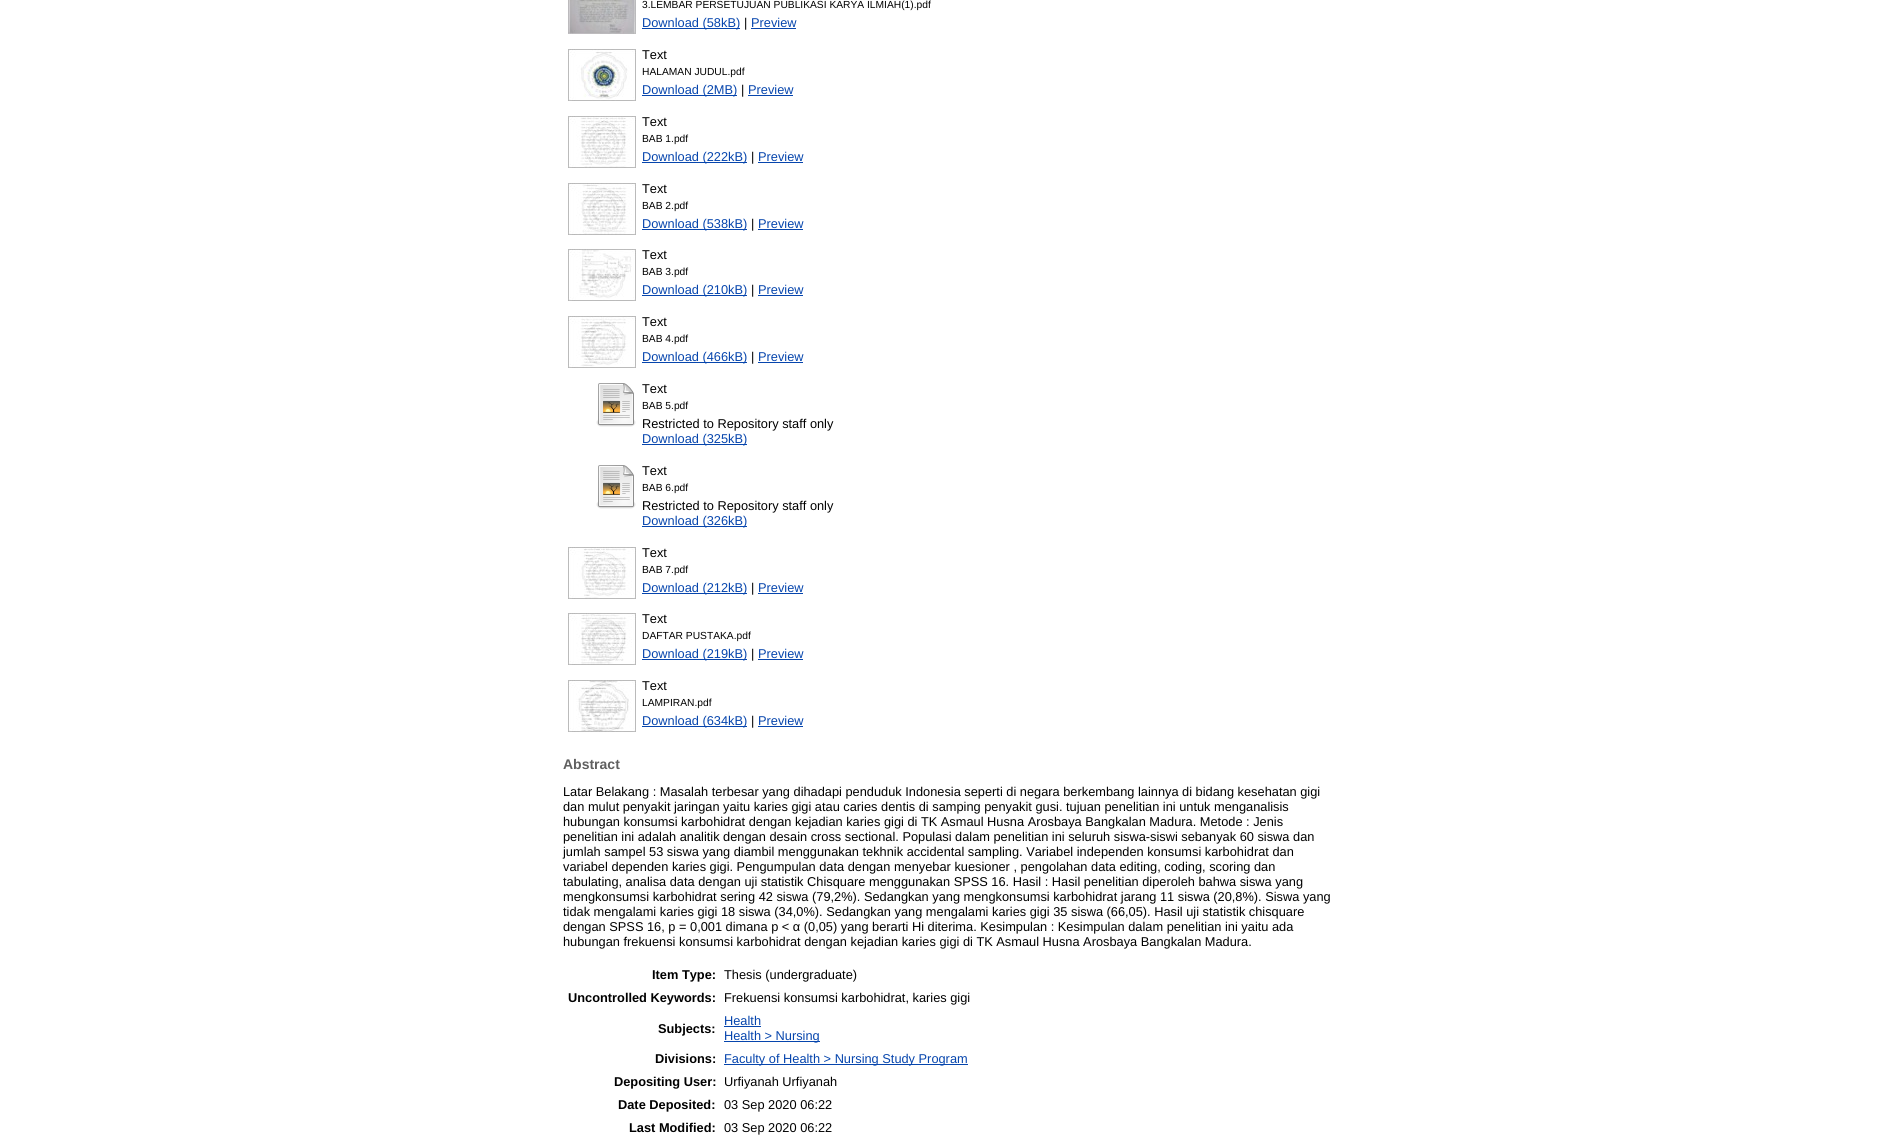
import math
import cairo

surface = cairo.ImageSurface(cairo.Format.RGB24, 1896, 1135)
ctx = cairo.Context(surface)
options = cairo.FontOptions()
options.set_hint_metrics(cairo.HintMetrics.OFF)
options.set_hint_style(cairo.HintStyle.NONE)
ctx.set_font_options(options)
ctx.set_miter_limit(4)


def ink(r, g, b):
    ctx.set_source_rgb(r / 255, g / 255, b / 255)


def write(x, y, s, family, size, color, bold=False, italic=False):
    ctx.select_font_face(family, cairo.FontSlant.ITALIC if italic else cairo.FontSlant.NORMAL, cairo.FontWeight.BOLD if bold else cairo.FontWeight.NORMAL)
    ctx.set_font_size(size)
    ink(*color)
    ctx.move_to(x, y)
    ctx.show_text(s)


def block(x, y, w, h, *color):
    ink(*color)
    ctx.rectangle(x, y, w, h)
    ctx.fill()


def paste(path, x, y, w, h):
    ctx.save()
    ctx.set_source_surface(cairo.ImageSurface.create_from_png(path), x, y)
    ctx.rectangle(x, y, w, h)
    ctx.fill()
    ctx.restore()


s1 = dict(family="Liberation Sans", size=10.25, color=(0, 0, 0))
s2 = dict(family="Liberation Sans", size=12.8, color=(6, 69, 173))
s3 = dict(family="Liberation Sans", size=12.8, color=(0, 0, 0))
s4 = dict(family="Liberation Sans", size=14, color=(96, 96, 96), bold=True)
s5 = dict(family="Liberation Sans", size=12.8, color=(0, 0, 0), bold=True)

ink(255, 255, 255)
ctx.paint()
paste("pic1.png", 568, 0, 68, 34)
write(642, 8, "3.LEMBAR PERSETUJUAN PUBLIKASI KARYA ILMIAH(1).pdf", **s1)
block(642, 28, 98, 1, 6, 69, 173)
write(642, 27, "Download (58kB)", **s2)
write(744, 27, "|", **s3)
write(751, 27, "Preview", **s2)
block(751, 28, 45, 1, 6, 69, 173)
paste("pic2.png", 568, 49, 68, 52)
write(642, 59, "Text", **s3)
write(642, 75, "HALAMAN JUDUL.pdf", **s1)
block(642, 95, 95, 1, 6, 69, 173)
write(642, 94, "Download (2MB)", **s2)
write(741, 94, "|", **s3)
write(748, 94, "Preview", **s2)
block(748, 95, 45, 1, 6, 69, 173)
paste("pic3.png", 568, 116, 68, 52)
write(642, 126, "Text", **s3)
write(642, 142, "BAB 1.pdf", **s1)
block(642, 162, 105, 1, 6, 69, 173)
write(642, 161, "Download (222kB)", **s2)
write(751, 161, "|", **s3)
write(758, 161, "Preview", **s2)
block(758, 162, 45, 1, 6, 69, 173)
paste("pic4.png", 568, 183, 68, 52)
write(642, 193, "Text", **s3)
write(642, 209, "BAB 2.pdf", **s1)
block(642, 229, 105, 1, 6, 69, 173)
write(642, 228, "Download (538kB)", **s2)
write(751, 228, "|", **s3)
write(758, 228, "Preview", **s2)
block(758, 229, 45, 1, 6, 69, 173)
paste("pic5.png", 568, 249, 68, 52)
write(642, 259, "Text", **s3)
write(642, 275, "BAB 3.pdf", **s1)
block(642, 295, 105, 1, 6, 69, 173)
write(642, 294, "Download (210kB)", **s2)
write(751, 294, "|", **s3)
write(758, 294, "Preview", **s2)
block(758, 295, 45, 1, 6, 69, 173)
paste("pic6.png", 568, 316, 68, 52)
write(642, 326, "Text", **s3)
write(642, 342, "BAB 4.pdf", **s1)
block(642, 362, 105, 1, 6, 69, 173)
write(642, 361, "Download (466kB)", **s2)
write(751, 361, "|", **s3)
write(758, 361, "Preview", **s2)
block(758, 362, 45, 1, 6, 69, 173)
paste("pic7.png", 596, 383, 40, 44)
write(642, 393, "Text", **s3)
write(642, 409, "BAB 5.pdf", **s1)
write(642, 428, "Restricted to Repository staff only", **s3)
block(642, 444, 105, 1, 6, 69, 173)
write(642, 443, "Download (325kB)", **s2)
paste("pic7.png", 596, 465, 40, 44)
write(642, 475, "Text", **s3)
write(642, 491, "BAB 6.pdf", **s1)
write(642, 510, "Restricted to Repository staff only", **s3)
block(642, 526, 105, 1, 6, 69, 173)
write(642, 525, "Download (326kB)", **s2)
paste("pic8.png", 568, 547, 68, 52)
write(642, 557, "Text", **s3)
write(642, 573, "BAB 7.pdf", **s1)
block(642, 593, 105, 1, 6, 69, 173)
write(642, 592, "Download (212kB)", **s2)
write(751, 592, "|", **s3)
write(758, 592, "Preview", **s2)
block(758, 593, 45, 1, 6, 69, 173)
paste("pic9.png", 568, 613, 68, 52)
write(642, 623, "Text", **s3)
write(642, 639, "DAFTAR PUSTAKA.pdf", **s1)
block(642, 659, 105, 1, 6, 69, 173)
write(642, 658, "Download (219kB)", **s2)
write(751, 658, "|", **s3)
write(758, 658, "Preview", **s2)
block(758, 659, 45, 1, 6, 69, 173)
paste("pic10.png", 568, 680, 68, 52)
write(642, 690, "Text", **s3)
write(642, 706, "LAMPIRAN.pdf", **s1)
block(642, 726, 105, 1, 6, 69, 173)
write(642, 725, "Download (634kB)", **s2)
write(751, 725, "|", **s3)
write(758, 725, "Preview", **s2)
block(758, 726, 45, 1, 6, 69, 173)
write(563, 769, "Abstract", **s4)
write(563, 796, "Latar Belakang : Masalah terbesar yang dihadapi penduduk Indonesia seperti di negara berkembang lainnya di bidang kesehatan gigi", **s3)
write(563, 811, "dan mulut penyakit jaringan yaitu karies gigi atau caries dentis di samping penyakit gusi. tujuan penelitian ini untuk menganalisis", **s3)
write(563, 826, "hubungan konsumsi karbohidrat dengan kejadian karies gigi di TK Asmaul Husna Arosbaya Bangkalan Madura. Metode : Jenis", **s3)
write(563, 841, "penelitian ini adalah analitik dengan desain cross sectional. Populasi dalam penelitian ini seluruh siswa-siswi sebanyak 60 siswa dan", **s3)
write(563, 856, "jumlah sampel 53 siswa yang diambil menggunakan tekhnik accidental sampling. Variabel independen konsumsi karbohidrat dan", **s3)
write(563, 871, "variabel dependen karies gigi. Pengumpulan data dengan menyebar kuesioner , pengolahan data editing, coding, scoring dan", **s3)
write(563, 886, "tabulating, analisa data dengan uji statistik Chisquare menggunakan SPSS 16. Hasil : Hasil penelitian diperoleh bahwa siswa yang", **s3)
write(563, 901, "mengkonsumsi karbohidrat sering 42 siswa (79,2%). Sedangkan yang mengkonsumsi karbohidrat jarang 11 siswa (20,8%). Siswa yang", **s3)
write(563, 916, "tidak mengalami karies gigi 18 siswa (34,0%). Sedangkan yang mengalami karies gigi 35 siswa (66,05). Hasil uji statistik chisquare", **s3)
write(563, 931, "dengan SPSS 16, p = 0,001 dimana p < α (0,05) yang berarti Hi diterima. Kesimpulan : Kesimpulan dalam penelitian ini yaitu ada", **s3)
write(563, 946, "hubungan frekuensi konsumsi karbohidrat dengan kejadian karies gigi di TK Asmaul Husna Arosbaya Bangkalan Madura.", **s3)
write(652, 979, "Item Type:", **s5)
write(724, 979, "Thesis (undergraduate)", **s3)
write(568, 1002, "Uncontrolled Keywords:", **s5)
write(724, 1002, "Frekuensi konsumsi karbohidrat, karies gigi", **s3)
write(658, 1033, "Subjects:", **s5)
write(724, 1025, "Health", **s2)
block(724, 1026, 37, 1, 6, 69, 173)
block(724, 1041, 96, 1, 6, 69, 173)
write(724, 1040, "Health > Nursing", **s2)
write(655, 1063, "Divisions:", **s5)
block(724, 1064, 244, 1, 6, 69, 173)
write(724, 1063, "Faculty of Health > Nursing Study Program", **s2)
write(614, 1086, "Depositing User:", **s5)
write(724, 1086, "Urfiyanah Urfiyanah", **s3)
write(618, 1109, "Date Deposited:", **s5)
write(724, 1109, "03 Sep 2020 06:22", **s3)
write(629, 1132, "Last Modified:", **s5)
write(724, 1132, "03 Sep 2020 06:22", **s3)
surface.write_to_png("screenshot.png")
